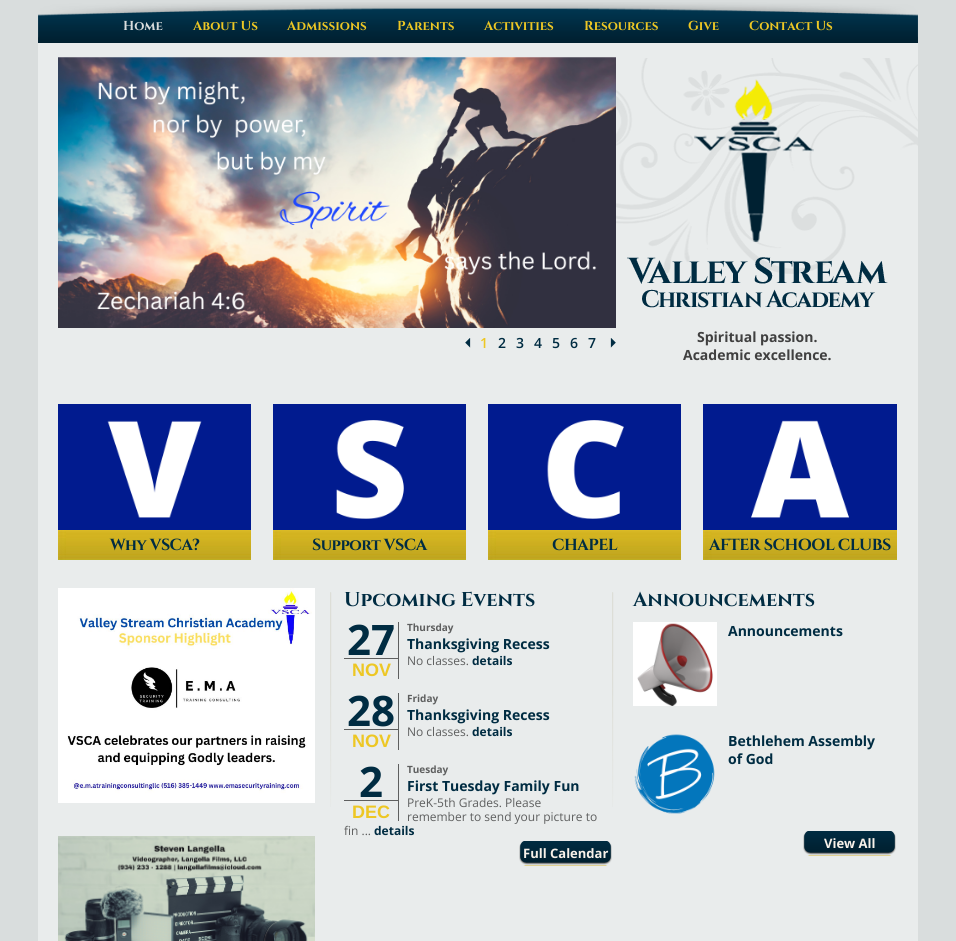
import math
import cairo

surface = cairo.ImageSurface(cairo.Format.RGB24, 956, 941)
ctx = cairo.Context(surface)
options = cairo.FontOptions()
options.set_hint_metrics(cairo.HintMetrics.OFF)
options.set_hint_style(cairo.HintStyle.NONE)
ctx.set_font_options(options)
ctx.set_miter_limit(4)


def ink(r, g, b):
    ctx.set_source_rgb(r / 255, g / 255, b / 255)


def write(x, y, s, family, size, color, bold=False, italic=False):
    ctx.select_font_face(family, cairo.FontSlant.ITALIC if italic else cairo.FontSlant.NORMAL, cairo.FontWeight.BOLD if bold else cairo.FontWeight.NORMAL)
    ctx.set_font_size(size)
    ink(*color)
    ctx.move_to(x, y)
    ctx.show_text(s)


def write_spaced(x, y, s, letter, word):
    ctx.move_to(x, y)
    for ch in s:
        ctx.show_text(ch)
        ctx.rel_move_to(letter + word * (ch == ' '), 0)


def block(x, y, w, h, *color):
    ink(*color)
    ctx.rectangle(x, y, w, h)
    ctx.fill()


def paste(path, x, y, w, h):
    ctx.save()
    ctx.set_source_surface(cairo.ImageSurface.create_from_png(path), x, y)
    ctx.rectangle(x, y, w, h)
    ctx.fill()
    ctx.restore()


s1 = dict(family="Cinzel", size=13, color=(217, 221, 221), bold=True)
s2 = dict(family="Cinzel", size=13, color=(237, 199, 36), bold=True)
s3 = dict(family="Open Sans SemiBold", size=14, color=(237, 199, 36))
s4 = dict(family="Open Sans SemiBold", size=14, color=(0, 44, 66))
s5 = dict(family="Open Sans", size=14, color=(64, 64, 64), bold=True)
s6 = dict(family="Cinzel", size=20, color=(0, 44, 66), bold=True)
s7 = dict(family="Open Sans", size=42, color=(0, 44, 66), bold=True)
s8 = dict(family="Liberation Sans", size=18, color=(237, 199, 36), bold=True)
s9 = dict(family="Open Sans", size=10, color=(94, 95, 95), bold=True)
s10 = dict(family="Open Sans", size=14, color=(0, 44, 66), bold=True)
s11 = dict(family="Open Sans", size=12, color=(94, 95, 95))
s12 = dict(family="Open Sans", size=12, color=(0, 44, 66), bold=True)
s13 = dict(family="Open Sans", size=13, color=(248, 241, 233), bold=True)

ink(217, 221, 221)
ctx.paint()
paste("pic1.png", 38, 2, 880, 41)
write(123, 30, "Home", **s1)
write(193, 30, "About Us", **s2)
write(287, 30, "Admissions", **s2)
write(397, 30, "Parents", **s2)
write(484, 30, "Activities", **s2)
write(584, 30, "Resources", **s2)
write(688, 30, "Give", **s2)
write(749, 30, "Contact Us", **s2)
block(38, 43, 880, 898, 233, 236, 236)
paste("pic2.png", 616, 58, 302, 216)
paste("pic3.png", 58, 57, 558, 271)
paste("pic4.png", 465, 338, 6, 10)
write(480, 348, "1", **s3)
write(498, 348, "2", **s4)
write(516, 348, "3", **s4)
write(534, 348, "4", **s4)
write(552, 348, "5", **s4)
write(570, 348, "6", **s4)
write(588, 348, "7", **s4)
paste("pic5.png", 610, 338, 6, 10)
paste("pic6.png", 627, 79, 261, 229)
write(697, 342, "Spiritual passion.", **s5)
write(683, 360, "Academic excellence.", **s5)
paste("pic7.png", 58, 404, 193, 126)
paste("pic8.png", 58, 530, 193, 30)
ctx.select_font_face("Cinzel", cairo.FontSlant.NORMAL, cairo.FontWeight.BOLD)
ctx.set_font_size(16)
ink(0, 44, 66)
write_spaced(110, 550, "Why VSCA?", -0.5, 0)
paste("pic9.png", 273, 404, 193, 126)
paste("pic8.png", 273, 530, 193, 30)
write_spaced(312, 550, "Support VSCA", -0.5, 0)
paste("pic10.png", 488, 404, 193, 126)
paste("pic8.png", 488, 530, 193, 30)
write_spaced(552, 550, "CHAPEL", -0.5, 0)
paste("pic11.png", 703, 404, 194, 126)
paste("pic12.png", 703, 530, 194, 30)
write_spaced(709, 550, "AFTER SCHOOL CLUBS", -0.5, 0)
paste("pic13.png", 330, 592, 2, 215)
paste("pic14.png", 58, 588, 257, 215)
paste("pic15.png", 58, 836, 257, 105)
paste("pic13.png", 612, 592, 2, 215)
write(344, 606, "Upcoming Events", **s6)
block(398, 622, 1, 57, 94, 95, 95)
block(344, 658, 54, 1, 94, 95, 95)
write(347, 655, "27", **s7)
write(352, 676, "NOV", **s8)
write(407, 631, "Thursday", **s9)
write(407, 649, "Thanksgiving Recess", **s10)
write(407, 665, "No classes.", **s11)
write(472, 665, "details", **s12)
block(398, 693, 1, 57, 94, 95, 95)
block(344, 729, 54, 1, 94, 95, 95)
write(347, 726, "28", **s7)
write(352, 747, "NOV", **s8)
write(407, 702, "Friday", **s9)
write(407, 720, "Thanksgiving Recess", **s10)
write(407, 736, "No classes.", **s11)
write(472, 736, "details", **s12)
block(398, 764, 1, 57, 94, 95, 95)
block(344, 800, 54, 1, 94, 95, 95)
write(359, 797, "2", **s7)
write(352, 818, "DEC", **s8)
write(407, 773, "Tuesday", **s9)
write(407, 791, "First Tuesday Family Fun", **s10)
write(407, 807, "PreK-5th Grades. Please", **s11)
write(407, 821, "remember to send your picture to", **s11)
write(344, 835, "fin ...", **s11)
write(374, 835, "details", **s12)
paste("pic16.png", 519, 841, 93, 25)
write(523, 858, "Full Calendar", **s13)
write(633, 606, "Announcements", **s6)
paste("pic17.png", 633, 622, 84, 84)
write(728, 636, "Announcements", **s10)
paste("pic18.png", 634, 734, 81, 80)
write(728, 746, "Bethlehem Assembly", **s10)
write(728, 764, "of God", **s10)
paste("pic16.png", 803, 831, 93, 25)
write(824, 848, "View All", **s13)
surface.write_to_png("screenshot.png")
